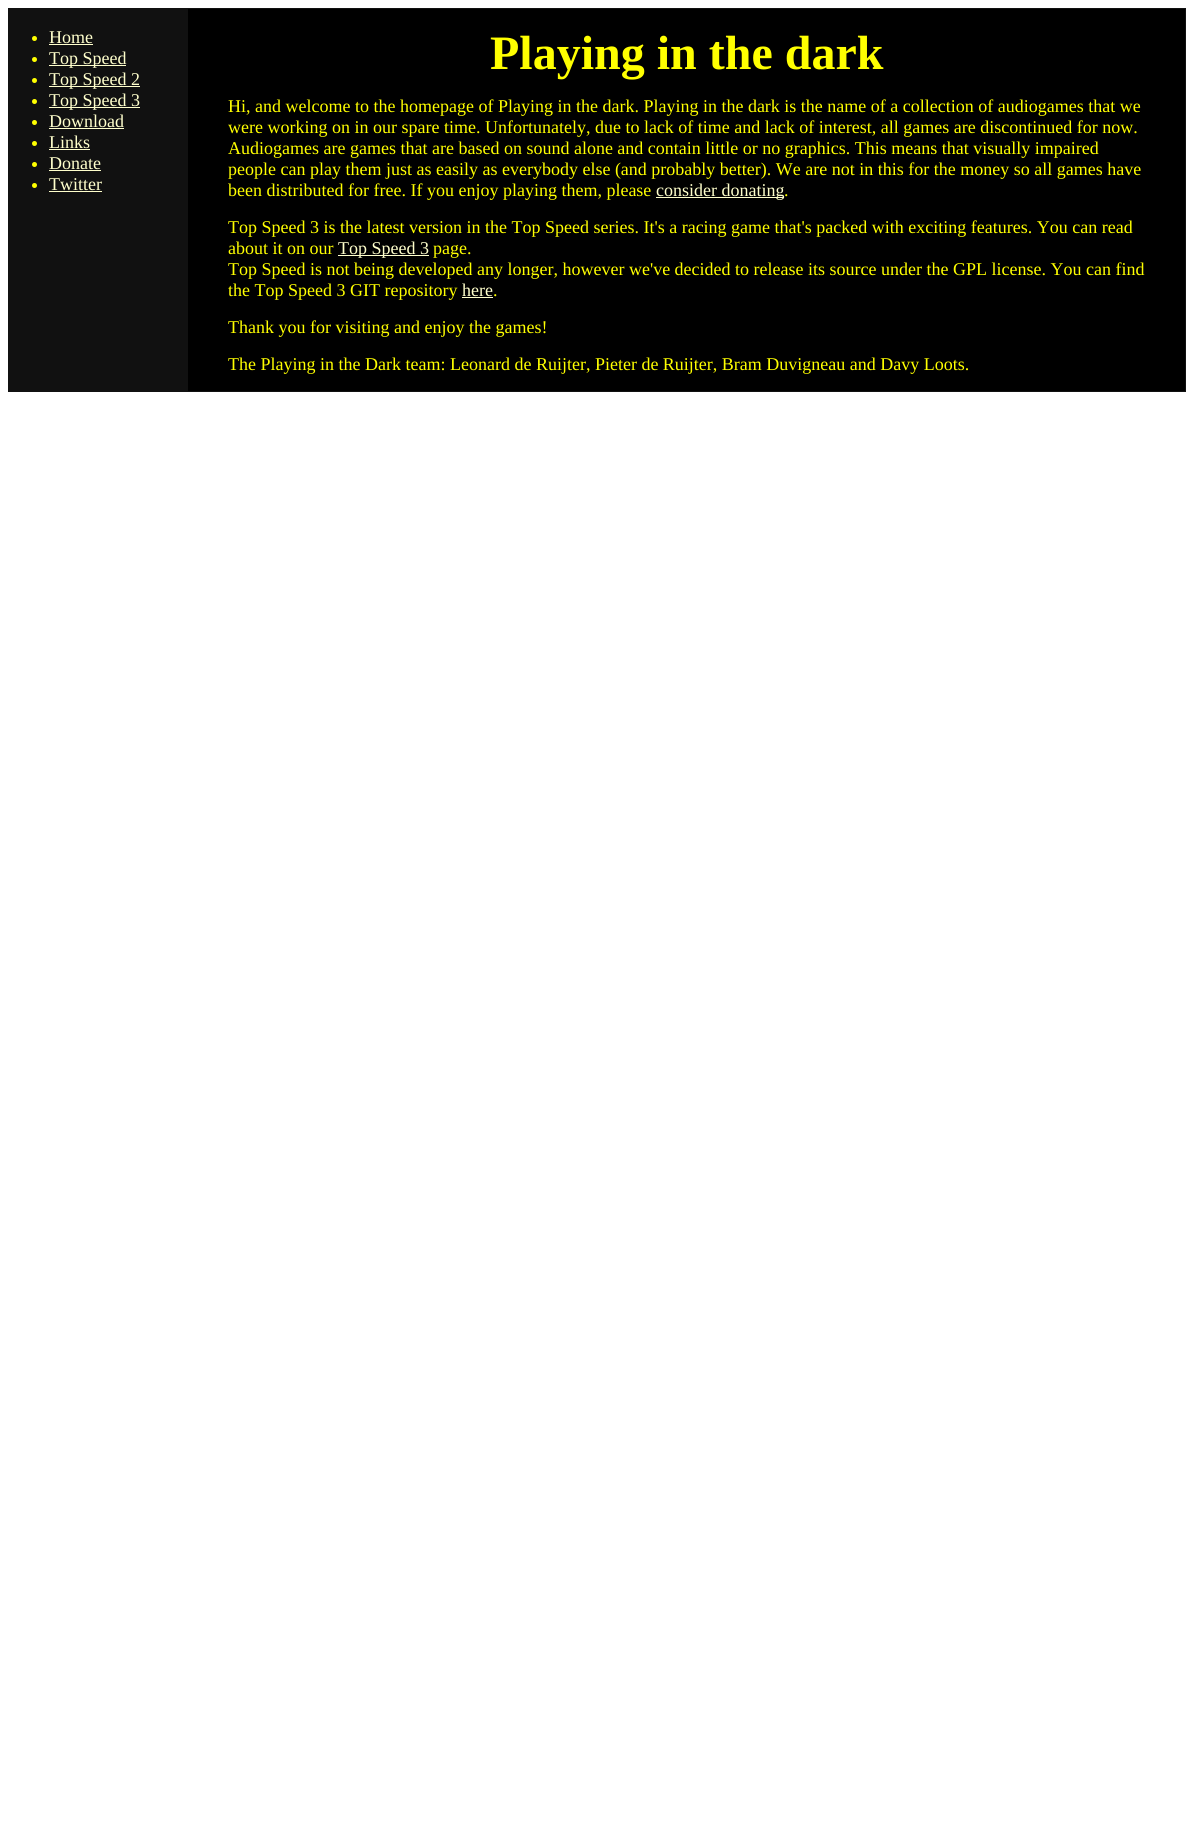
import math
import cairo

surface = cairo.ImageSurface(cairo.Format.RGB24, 1194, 1837)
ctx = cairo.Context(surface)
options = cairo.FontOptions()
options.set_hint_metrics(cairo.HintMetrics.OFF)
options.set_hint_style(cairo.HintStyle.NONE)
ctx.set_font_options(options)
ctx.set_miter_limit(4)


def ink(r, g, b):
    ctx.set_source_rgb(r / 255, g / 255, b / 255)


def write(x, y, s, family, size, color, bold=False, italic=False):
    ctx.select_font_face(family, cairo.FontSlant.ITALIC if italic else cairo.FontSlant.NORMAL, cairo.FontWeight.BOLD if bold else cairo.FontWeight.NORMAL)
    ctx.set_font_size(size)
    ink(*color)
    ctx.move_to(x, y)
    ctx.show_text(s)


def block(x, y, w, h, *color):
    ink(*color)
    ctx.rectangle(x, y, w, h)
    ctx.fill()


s1 = dict(family="Liberation Serif", size=18, color=(255, 255, 204))
s2 = dict(family="Liberation Serif", size=48, color=(255, 255, 0), bold=True)
s3 = dict(family="Liberation Serif", size=18, color=(255, 255, 0))

ink(255, 255, 255)
ctx.paint()
block(188, 9, 997, 382, 0, 0, 0)
block(8, 8, 1178, 1, 17, 17, 17)
block(1185, 8, 1, 384, 17, 17, 17)
block(8, 391, 1178, 1, 17, 17, 17)
block(8, 8, 1, 384, 17, 17, 17)
block(9, 9, 179, 382, 17, 17, 17)
ink(255, 255, 0)
ctx.arc(34.5, 38.5, 2.5, 0, 2 * math.pi)
ctx.fill()
write(49, 43, "Home", **s1)
block(49, 44, 44, 1, 255, 255, 204)
ink(255, 255, 0)
ctx.new_path()
ctx.arc(34.5, 59.5, 2.5, 0, 2 * math.pi)
ctx.fill()
block(49, 65, 77, 1, 255, 255, 204)
write(49, 64, "Top Speed", **s1)
ink(255, 255, 0)
ctx.new_path()
ctx.arc(34.5, 80.5, 2.5, 0, 2 * math.pi)
ctx.fill()
block(49, 86, 91, 1, 255, 255, 204)
write(49, 85, "Top Speed 2", **s1)
ink(255, 255, 0)
ctx.new_path()
ctx.arc(34.5, 101.5, 2.5, 0, 2 * math.pi)
ctx.fill()
block(49, 107, 91, 1, 255, 255, 204)
write(49, 106, "Top Speed 3", **s1)
ink(255, 255, 0)
ctx.new_path()
ctx.arc(34.5, 122.5, 2.5, 0, 2 * math.pi)
ctx.fill()
write(49, 127, "Download", **s1)
block(49, 128, 75, 1, 255, 255, 204)
ink(255, 255, 0)
ctx.new_path()
ctx.arc(34.5, 143.5, 2.5, 0, 2 * math.pi)
ctx.fill()
write(49, 148, "Links", **s1)
block(49, 149, 41, 1, 255, 255, 204)
ink(255, 255, 0)
ctx.new_path()
ctx.arc(34.5, 164.5, 2.5, 0, 2 * math.pi)
ctx.fill()
write(49, 169, "Donate", **s1)
block(49, 170, 52, 1, 255, 255, 204)
ink(255, 255, 0)
ctx.new_path()
ctx.arc(34.5, 185.5, 2.5, 0, 2 * math.pi)
ctx.fill()
write(49, 190, "Twitter", **s1)
block(49, 191, 53, 1, 255, 255, 204)
write(490, 69, "Playing in the dark", **s2)
write(228, 112, "Hi, and welcome to the homepage of Playing in the dark. Playing in the dark is the name of a collection of audiogames that we", **s3)
write(228, 133, "were working on in our spare time. Unfortunately, due to lack of time and lack of interest, all games are discontinued for now.", **s3)
write(228, 154, "Audiogames are games that are based on sound alone and contain little or no graphics. This means that visually impaired", **s3)
write(228, 175, "people can play them just as easily as everybody else (and probably better). We are not in this for the money so all games have", **s3)
write(228, 196, "been distributed for free. If you enjoy playing them, please", **s3)
block(656, 197, 128, 1, 255, 255, 204)
write(656, 196, "consider donating", **s1)
write(784, 196, ".", **s3)
write(228, 233, "Top Speed 3 is the latest version in the Top Speed series. It's a racing game that's packed with exciting features. You can read", **s3)
write(228, 254, "about it on our", **s3)
block(338, 255, 91, 1, 255, 255, 204)
write(338, 254, "Top Speed 3", **s1)
write(433, 254, "page.", **s3)
write(228, 275, "Top Speed is not being developed any longer, however we've decided to release its source under the GPL license. You can find", **s3)
write(228, 296, "the Top Speed 3 GIT repository", **s3)
write(462, 296, "here", **s1)
write(493, 296, ".", **s3)
block(462, 297, 31, 1, 255, 255, 204)
write(228, 333, "Thank you for visiting and enjoy the games!", **s3)
write(228, 370, "The Playing in the Dark team: Leonard de Ruijter, Pieter de Ruijter, Bram Duvigneau and Davy Loots.", **s3)
surface.write_to_png("screenshot.png")
